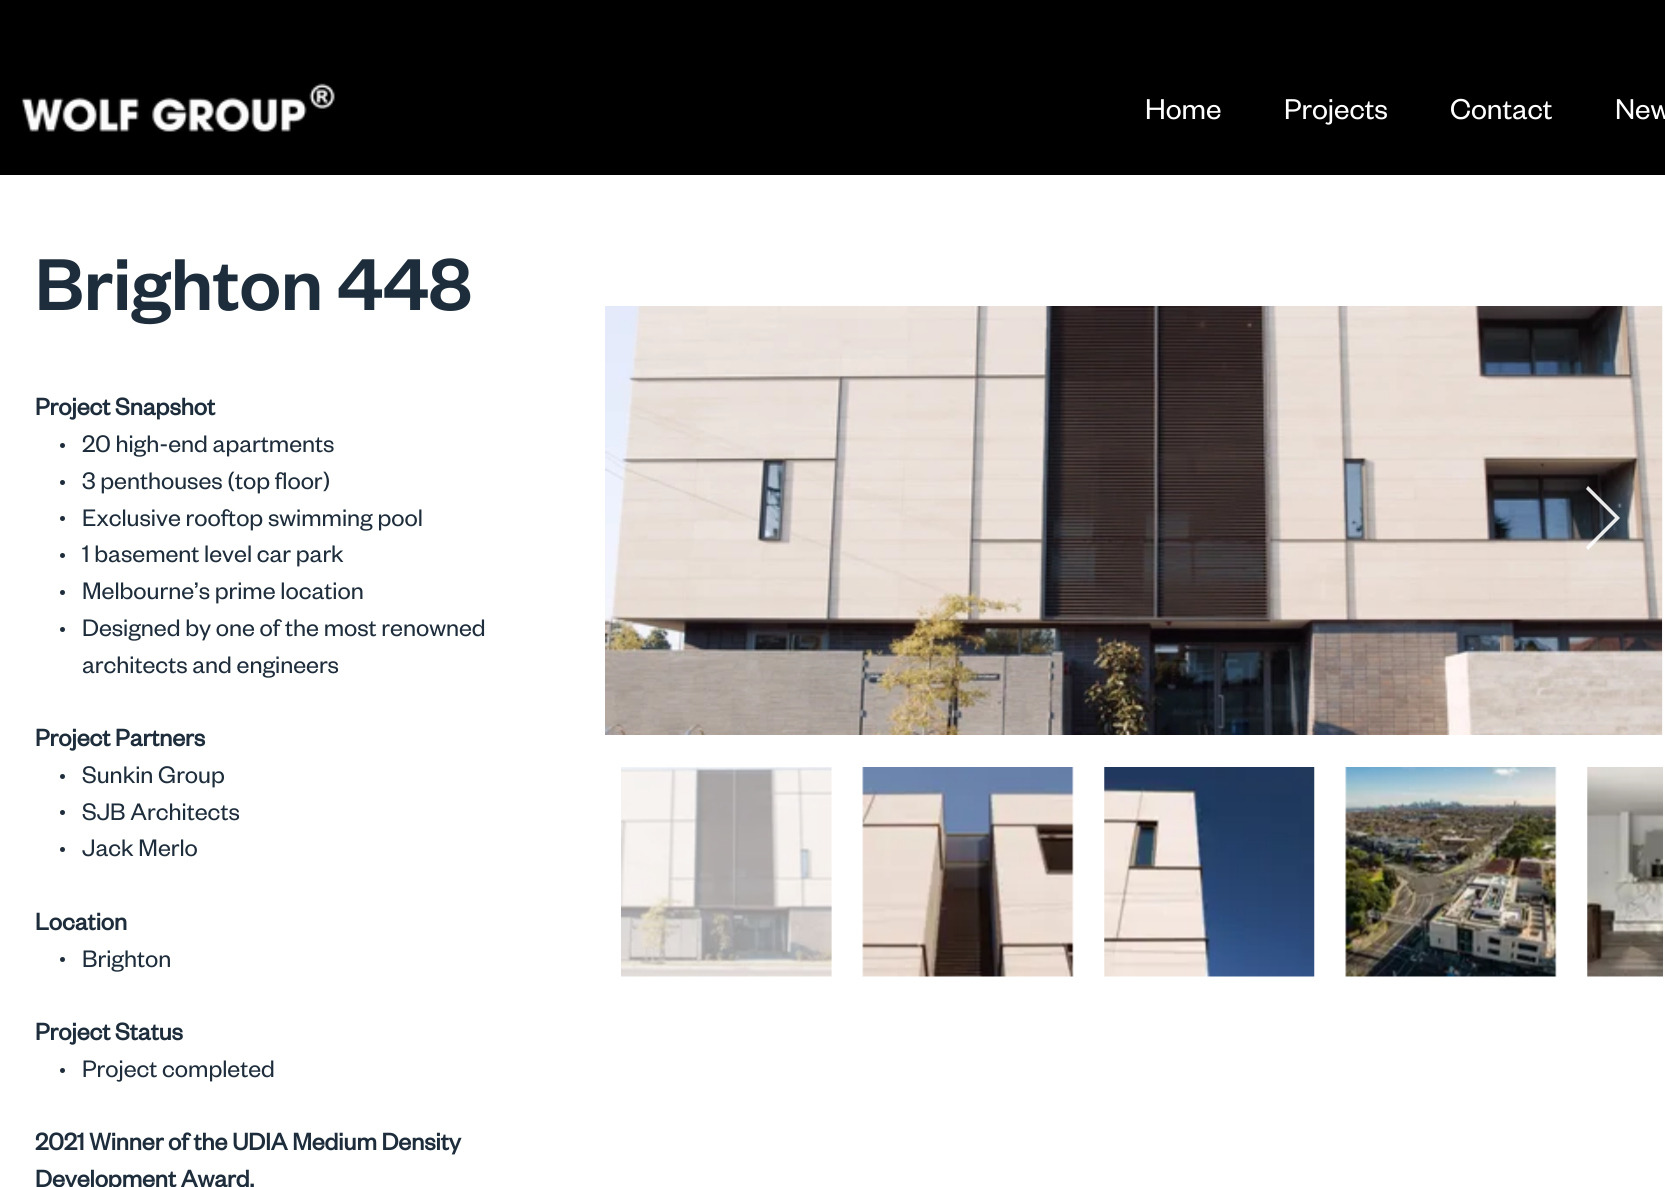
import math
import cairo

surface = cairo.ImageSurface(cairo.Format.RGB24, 1665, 1187)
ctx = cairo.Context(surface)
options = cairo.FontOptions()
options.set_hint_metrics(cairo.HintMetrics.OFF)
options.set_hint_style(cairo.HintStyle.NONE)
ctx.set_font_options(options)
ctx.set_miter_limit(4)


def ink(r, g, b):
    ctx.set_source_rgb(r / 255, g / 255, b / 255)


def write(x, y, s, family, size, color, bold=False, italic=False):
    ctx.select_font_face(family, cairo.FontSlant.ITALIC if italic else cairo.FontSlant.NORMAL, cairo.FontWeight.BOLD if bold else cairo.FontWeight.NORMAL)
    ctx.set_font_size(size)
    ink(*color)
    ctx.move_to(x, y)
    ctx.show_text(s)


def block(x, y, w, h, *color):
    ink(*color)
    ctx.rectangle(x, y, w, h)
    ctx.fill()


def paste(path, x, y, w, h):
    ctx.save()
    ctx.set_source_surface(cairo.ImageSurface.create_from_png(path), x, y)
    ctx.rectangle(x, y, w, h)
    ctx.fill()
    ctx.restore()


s1 = dict(family="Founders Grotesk", size=31.5, color=(255, 255, 255))
s2 = dict(family="Founders Grotesk Medium", size=80.5, color=(30, 45, 59))
s3 = dict(family="Founders Grotesk", size=26.25, color=(30, 45, 59), bold=True)
s4 = dict(family="Founders Grotesk", size=26.25, color=(30, 45, 59))

ink(255, 255, 255)
ctx.paint()
block(0, 0, 1665, 175, 0, 0, 0)
paste("pic1.png", 21, 83, 314, 49)
write(1145, 119, "Home", **s1)
write(1284, 119, "Projects", **s1)
write(1450, 119, "Contact", **s1)
write(1615, 119, "New", **s1)
write(35, 310, "Brighton 448", **s2)
write(35, 415, "Project Snapshot", **s3)
ctx.new_path()
ctx.arc(62.5, 445.5, 2.5, 0, 2 * math.pi)
ctx.fill()
write(82, 452, "20 high-end apartments", **s4)
ctx.new_path()
ctx.arc(62.5, 482.5, 2.5, 0, 2 * math.pi)
ctx.fill()
write(82, 489, "3 penthouses (top floor)", **s4)
ctx.new_path()
ctx.arc(62.5, 518.5, 2.5, 0, 2 * math.pi)
ctx.fill()
write(82, 526, "Exclusive rooftop swimming pool", **s4)
ctx.new_path()
ctx.arc(62.5, 555.5, 2.5, 0, 2 * math.pi)
ctx.fill()
write(82, 562, "1 basement level car park", **s4)
ctx.new_path()
ctx.arc(62.5, 592.5, 2.5, 0, 2 * math.pi)
ctx.fill()
write(82, 599, "Melbourne’s prime location", **s4)
ctx.new_path()
ctx.arc(62.5, 629.5, 2.5, 0, 2 * math.pi)
ctx.fill()
write(82, 636, "Designed by one of the most renowned", **s4)
write(82, 673, "architects and engineers", **s4)
write(35, 746, "Project Partners", **s3)
ctx.new_path()
ctx.arc(62.5, 776.5, 2.5, 0, 2 * math.pi)
ctx.fill()
write(82, 783, "Sunkin Group", **s4)
ctx.new_path()
ctx.arc(62.5, 812.5, 2.5, 0, 2 * math.pi)
ctx.fill()
write(82, 820, "SJB Architects", **s4)
ctx.new_path()
ctx.arc(62.5, 849.5, 2.5, 0, 2 * math.pi)
ctx.fill()
write(82, 856, "Jack Merlo", **s4)
write(35, 930, "Location", **s3)
ctx.new_path()
ctx.arc(62.5, 959.5, 2.5, 0, 2 * math.pi)
ctx.fill()
write(82, 967, "Brighton", **s4)
write(35, 1040, "Project Status", **s3)
ctx.new_path()
ctx.arc(62.5, 1070.5, 2.5, 0, 2 * math.pi)
ctx.fill()
write(82, 1077, "Project completed", **s4)
write(35, 1150, "2021 Winner of the UDIA Medium Density", **s3)
write(35, 1187, "Development Award.", **s3)
block(1662, 306, 1, 429, 247, 247, 247)
paste("pic2.png", 605, 306, 1057, 429)
ctx.set_source_rgba(1, 1, 1, 0.9)
ctx.new_path()
ctx.move_to(1586, 489)
ctx.line_to(1588, 486)
ctx.line_to(1620, 518)
ctx.line_to(1588, 550)
ctx.line_to(1586, 547)
ctx.line_to(1615, 518)
ctx.close_path()
ctx.fill()
paste("pic3.png", 621, 767, 211, 210)
paste("pic4.png", 862, 767, 212, 210)
paste("pic5.png", 1104, 767, 211, 210)
paste("pic6.png", 1345, 767, 212, 210)
paste("pic7.png", 1587, 767, 76, 210)
surface.write_to_png("screenshot.png")
